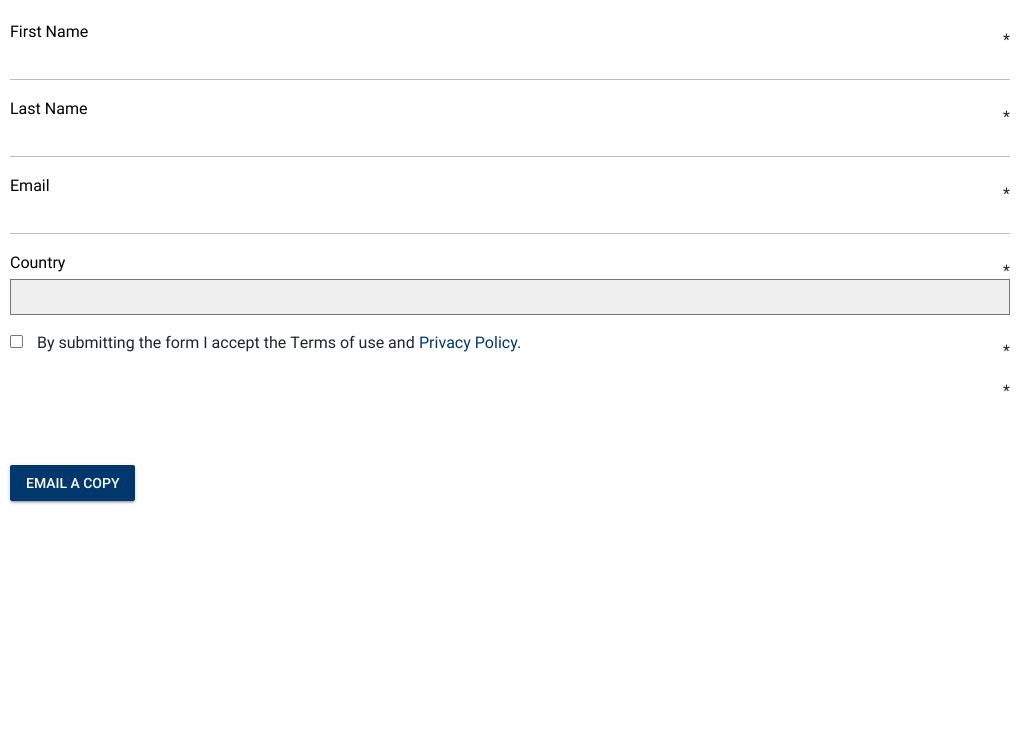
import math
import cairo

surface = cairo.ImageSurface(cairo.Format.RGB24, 1020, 741)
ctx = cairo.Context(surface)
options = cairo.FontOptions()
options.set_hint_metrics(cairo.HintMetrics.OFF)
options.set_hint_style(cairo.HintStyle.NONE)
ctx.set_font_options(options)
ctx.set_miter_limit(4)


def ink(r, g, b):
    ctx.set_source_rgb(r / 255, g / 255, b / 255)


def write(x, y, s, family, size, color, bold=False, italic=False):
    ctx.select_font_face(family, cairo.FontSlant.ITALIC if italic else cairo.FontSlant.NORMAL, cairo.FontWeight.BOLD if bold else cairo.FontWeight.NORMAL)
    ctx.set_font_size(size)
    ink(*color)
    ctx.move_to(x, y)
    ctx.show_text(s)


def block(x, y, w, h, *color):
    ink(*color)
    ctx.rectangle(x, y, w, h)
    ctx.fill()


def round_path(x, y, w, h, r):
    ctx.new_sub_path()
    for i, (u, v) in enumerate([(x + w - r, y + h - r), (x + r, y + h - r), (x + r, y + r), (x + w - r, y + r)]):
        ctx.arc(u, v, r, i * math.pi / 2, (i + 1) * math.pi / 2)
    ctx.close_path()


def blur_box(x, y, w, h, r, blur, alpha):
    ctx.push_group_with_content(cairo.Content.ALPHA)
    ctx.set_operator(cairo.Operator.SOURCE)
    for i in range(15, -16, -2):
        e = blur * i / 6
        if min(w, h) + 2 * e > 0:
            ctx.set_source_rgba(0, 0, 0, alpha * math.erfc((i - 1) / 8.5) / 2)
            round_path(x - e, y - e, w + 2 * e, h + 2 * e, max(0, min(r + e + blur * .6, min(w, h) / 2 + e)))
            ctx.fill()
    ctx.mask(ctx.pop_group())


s1 = dict(family="Roboto", size=16, color=(0, 0, 0))
s2 = dict(family="Roboto", size=16, color=(33, 37, 41))
s3 = dict(family="Roboto", size=16, color=(0, 56, 110))
s4 = dict(family="Roboto Medium", size=14, color=(255, 255, 255))

ink(255, 255, 255)
ctx.paint()
write(10, 37, "First Name", **s1)
write(1003, 45, "*", **s2)
block(10, 79, 1000, 1, 189, 189, 189)
write(10, 114, "Last Name", **s1)
write(1003, 122, "*", **s2)
block(10, 156, 1000, 1, 189, 189, 189)
write(10, 191, "Email", **s1)
write(1003, 199, "*", **s2)
block(10, 233, 1000, 1, 189, 189, 189)
write(10, 268, "Country", **s1)
write(1003, 276, "*", **s2)
ink(239, 239, 239)
ctx.rectangle(10.5, 279.5, 999, 35)
ctx.fill_preserve()
ink(118, 118, 118)
ctx.set_line_width(1)
ctx.stroke()
round_path(10.5, 335.5, 12, 12, 1.5)
ctx.stroke()
write(37, 348, "By submitting the form I accept the Terms of use and", **s2)
write(419, 348, "Privacy Policy", **s3)
write(517, 348, ".", **s2)
write(1003, 356, "*", **s2)
write(1003, 396, "*", **s2)
ink(0, 0, 0)
blur_box(10, 466, 125, 36, 2, 2.5, 0.12)
blur_box(12, 470, 121, 32, 0, 0.5, 0.2)
blur_box(10, 467, 125, 36, 2, 1, 0.14)
ink(0, 56, 110)
round_path(10, 465, 125, 36, 2)
ctx.fill()
write(26, 488, "EMAIL A COPY", **s4)
surface.write_to_png("screenshot.png")
